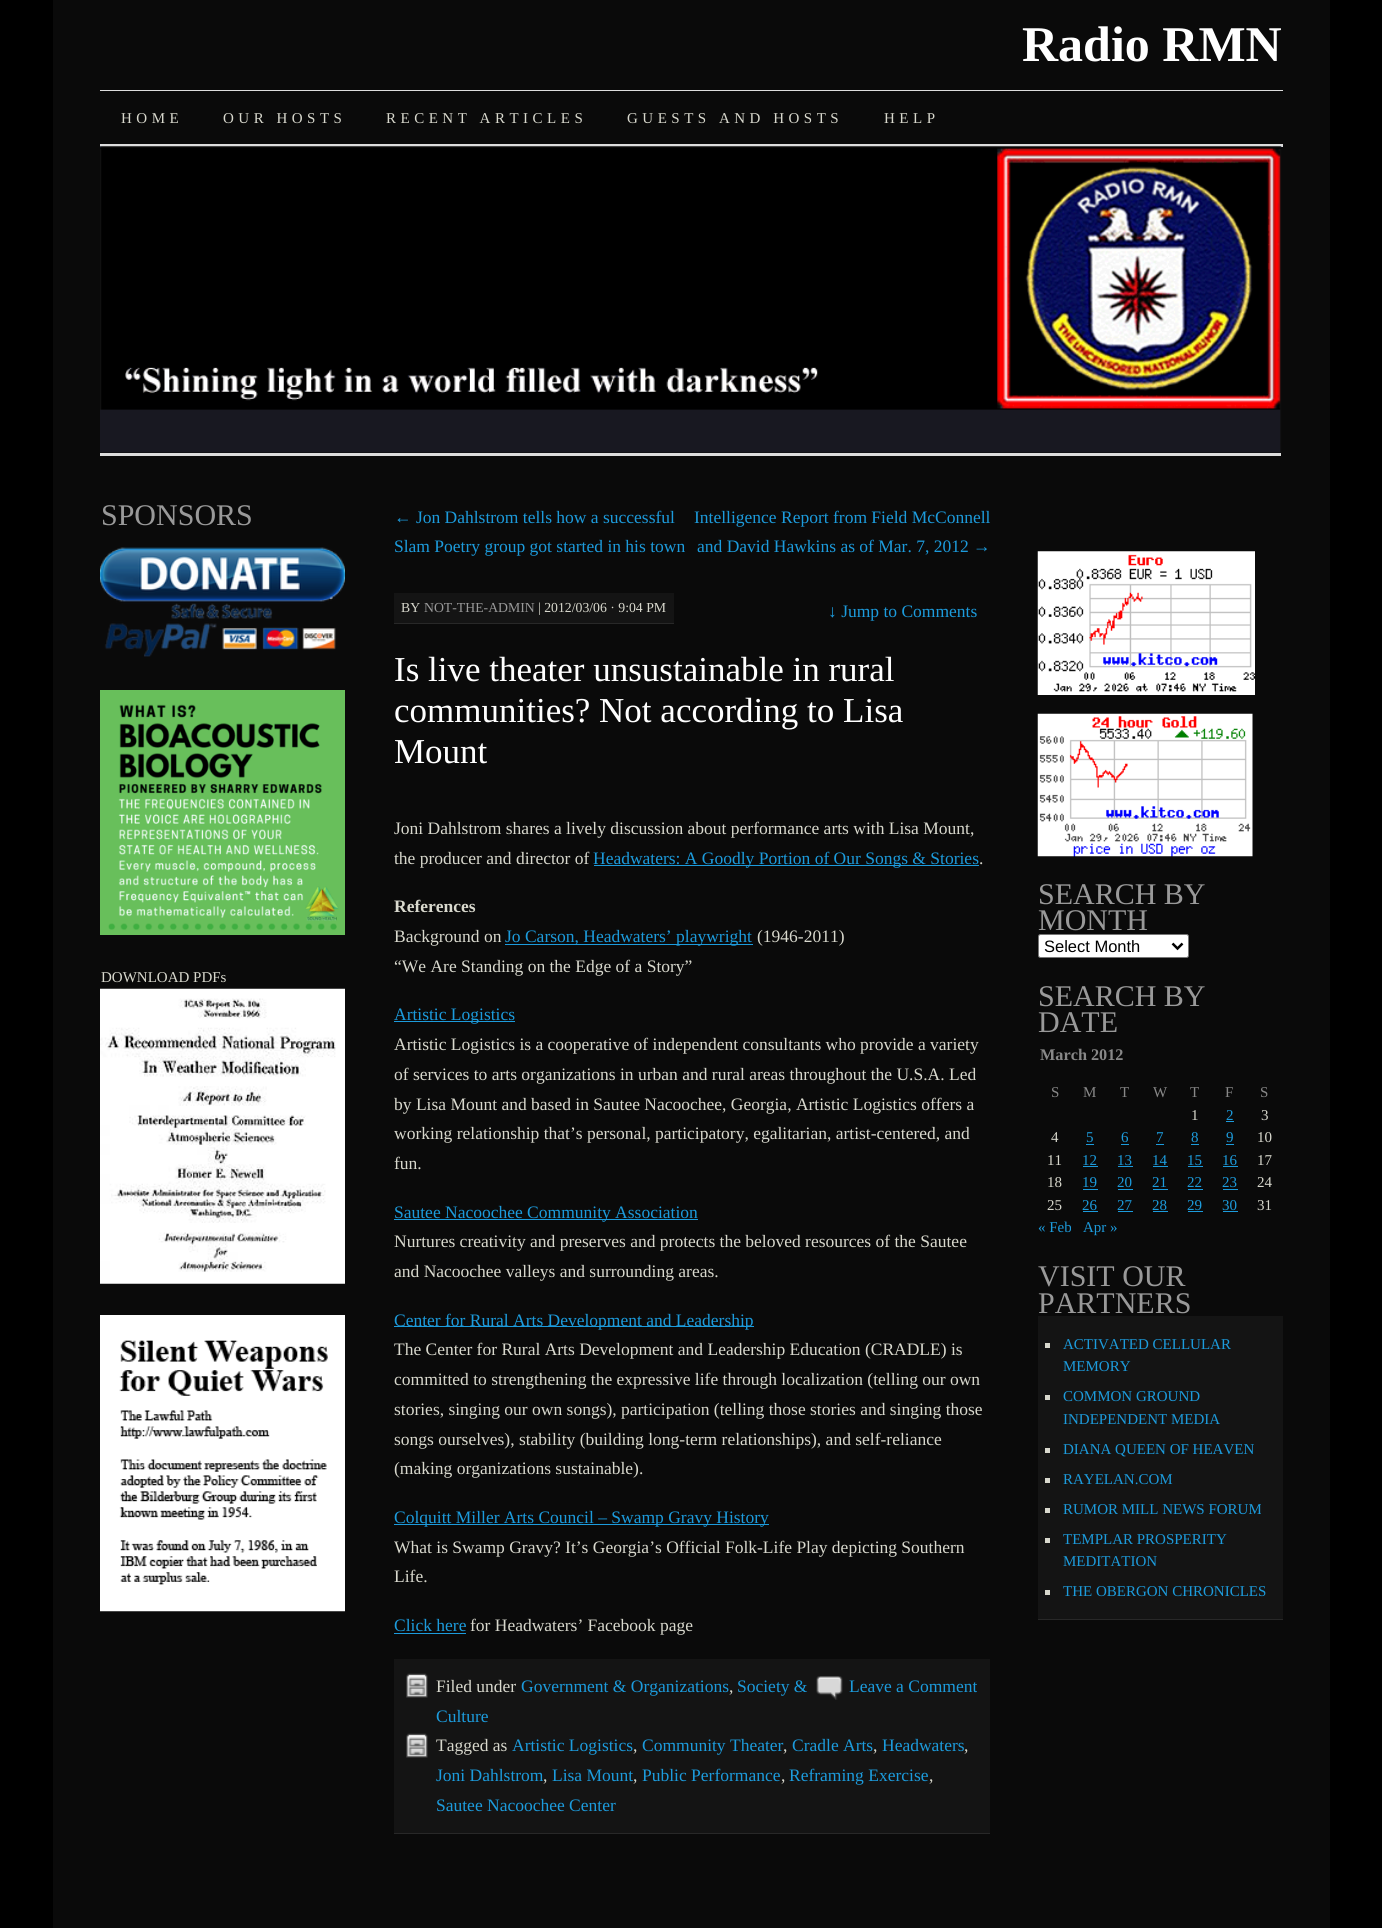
import math
import cairo

surface = cairo.ImageSurface(cairo.Format.RGB24, 1382, 1928)
ctx = cairo.Context(surface)
options = cairo.FontOptions()
options.set_hint_metrics(cairo.HintMetrics.OFF)
options.set_hint_style(cairo.HintStyle.NONE)
ctx.set_font_options(options)
ctx.set_miter_limit(4)


def ink(r, g, b):
    ctx.set_source_rgb(r / 255, g / 255, b / 255)


def write(x, y, s, family, size, color, bold=False, italic=False):
    ctx.select_font_face(family, cairo.FontSlant.ITALIC if italic else cairo.FontSlant.NORMAL, cairo.FontWeight.BOLD if bold else cairo.FontWeight.NORMAL)
    ctx.set_font_size(size)
    ink(*color)
    ctx.move_to(x, y)
    ctx.show_text(s)


def write_spaced(x, y, s, letter, word):
    ctx.move_to(x, y)
    for ch in s:
        ctx.show_text(ch)
        ctx.rel_move_to(letter + word * (ch == ' '), 0)


def block(x, y, w, h, *color):
    ink(*color)
    ctx.rectangle(x, y, w, h)
    ctx.fill()


def round_path(x, y, w, h, r):
    ctx.new_sub_path()
    for i, (u, v) in enumerate([(x + w - r, y + h - r), (x + r, y + h - r), (x + r, y + r), (x + w - r, y + r)]):
        ctx.arc(u, v, r, i * math.pi / 2, (i + 1) * math.pi / 2)
    ctx.close_path()


def paste(path, x, y, w, h):
    ctx.save()
    ctx.set_source_surface(cairo.ImageSurface.create_from_png(path), x, y)
    ctx.rectangle(x, y, w, h)
    ctx.fill()
    ctx.restore()


s1 = dict(family="Liberation Serif", size=50, color=(255, 255, 255), bold=True)
s2 = dict(family="Liberation Serif", size=30, color=(153, 153, 153))
s3 = dict(family="Liberation Serif", size=15, color=(216, 216, 205))
s4 = dict(family="Liberation Serif", size=17.5, color=(28, 155, 220))
s5 = dict(family="Liberation Serif", size=13.75, color=(216, 216, 205))
s6 = dict(family="Liberation Serif", size=13.75, color=(153, 153, 153))
s7 = dict(family="Liberation Serif", size=35, color=(255, 255, 255))
s8 = dict(family="Liberation Serif", size=17.5, color=(216, 216, 205))
s9 = dict(family="Liberation Serif", size=17.5, color=(216, 216, 205), bold=True)
s10 = dict(family="Liberation Sans", size=16.5, color=(0, 0, 0))
s11 = dict(family="Liberation Serif", size=16.25, color=(136, 136, 136), bold=True)
s12 = dict(family="Liberation Serif", size=15, color=(136, 136, 136))
s13 = dict(family="Liberation Serif", size=15, color=(28, 155, 220))

ink(0, 0, 0)
ctx.paint()
block(53, 0, 1277, 1928, 10, 10, 10)
write(1022, 61, "Radio RMN", **s1)
block(100, 90, 1183, 1, 221, 221, 221)
block(100, 144, 1183, 3, 221, 221, 221)
ctx.select_font_face("Liberation Serif")
ctx.set_font_size(15)
ink(216, 216, 205)
write_spaced(121, 123, "HOME", 4.5, 0)
write_spaced(223, 123, "OUR HOSTS", 4.5, 0)
write_spaced(386, 123, "RECENT ARTICLES", 4.5, 0)
write_spaced(627, 123, "GUESTS AND HOSTS", 4.5, 0)
write_spaced(884, 123, "HELP", 4.5, 0)
paste("pic1.png", 100, 146, 1182, 307)
block(100, 453, 1181, 3, 221, 221, 221)
write(101, 525, "SPONSORS", **s2)
paste("pic2.png", 100, 547, 245, 110)
paste("pic3.png", 100, 690, 245, 245)
write(101, 982, "DOWNLOAD PDFs", **s3)
paste("pic4.png", 100, 988, 245, 296)
paste("pic5.png", 100, 1315, 245, 297)
write(394, 523, "← Jon Dahlstrom tells how a successful", **s4)
write(394, 552, "Slam Poetry group got started in his town", **s4)
write(694, 523, "Intelligence Report from Field McConnell", **s4)
write(697, 552, "and David Hawkins as of Mar. 7, 2012 →", **s4)
block(394, 593, 280, 30, 20, 20, 20)
block(394, 623, 280, 1, 40, 40, 40)
write(401, 612, "BY", **s5)
write(424, 612, "NOT-THE-ADMIN", **s6)
write(538, 612, "| 2012/03/06 · 9:04 PM", **s5)
write(828, 617, "↓ Jump to Comments", **s4)
write(394, 681, "Is live theater unsustainable in rural", **s7)
write(394, 722, "communities? Not according to Lisa", **s7)
write(394, 763, "Mount", **s7)
write(394, 834, "Joni Dahlstrom shares a lively discussion about performance arts with Lisa Mount,", **s8)
write(394, 864, "the producer and director of", **s8)
block(594, 865, 385, 1, 28, 155, 220)
write(593, 864, "Headwaters: A Goodly Portion of Our Songs & Stories", **s4)
write(979, 864, ".", **s8)
write(394, 912, "References", **s9)
write(394, 942, "Background on", **s8)
block(505, 944, 248, 1, 28, 155, 220)
write(505, 942, "Jo Carson, Headwaters’ playwright", **s4)
write(757, 942, "(1946-2011)", **s8)
write(394, 972, "“We Are Standing on the Edge of a Story”", **s8)
block(394, 1021, 121, 1, 28, 155, 220)
write(394, 1020, "Artistic Logistics", **s4)
write(394, 1050, "Artistic Logistics is a cooperative of independent consultants who provide a variety", **s8)
write(394, 1080, "of services to arts organizations in urban and rural areas throughout the U.S.A. Led", **s8)
write(394, 1110, "by Lisa Mount and based in Sautee Nacoochee, Georgia, Artistic Logistics offers a", **s8)
write(394, 1139, "working relationship that’s personal, participatory, egalitarian, artist-centered, and", **s8)
write(394, 1169, "fun.", **s8)
block(394, 1219, 304, 1, 28, 155, 220)
write(394, 1218, "Sautee Nacoochee Community Association", **s4)
write(394, 1247, "Nurtures creativity and preserves and protects the beloved resources of the Sautee", **s8)
write(394, 1277, "and Nacoochee valleys and surrounding areas.", **s8)
block(394, 1326, 360, 1, 28, 155, 220)
write(394, 1326, "Center for Rural Arts Development and Leadership", **s4)
ctx.save()
ctx.rectangle(394, 503, 596, 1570)
ctx.clip()
write(394, 1355, "The Center for Rural Arts Development and Leadership Education (CRADLE) is", **s8)
ctx.restore()
write(394, 1385, "committed to strengthening the expressive life through localization (telling our own", **s8)
write(394, 1415, "stories, singing our own songs), participation (telling those stories and singing those", **s8)
write(394, 1445, "songs ourselves), stability (building long-term relationships), and self-reliance", **s8)
write(394, 1474, "(making organizations sustainable).", **s8)
block(394, 1524, 375, 1, 28, 155, 220)
write(394, 1523, "Colquitt Miller Arts Council – Swamp Gravy History", **s4)
write(394, 1553, "What is Swamp Gravy? It’s Georgia’s Official Folk-Life Play depicting Southern", **s8)
write(394, 1582, "Life.", **s8)
write(394, 1631, "Click here", **s4)
block(394, 1633, 72, 1, 28, 155, 220)
write(470, 1631, "for Headwaters’ Facebook page", **s8)
block(394, 1659, 596, 174, 20, 20, 20)
block(394, 1833, 596, 1, 40, 40, 40)
paste("pic6.png", 406, 1673, 22, 25)
write(436, 1692, "Filed under", **s8)
write(521, 1692, "Government & Organizations", **s4)
write(729, 1692, ",", **s8)
write(737, 1692, "Society &", **s4)
write(436, 1722, "Culture", **s4)
paste("pic7.png", 816, 1676, 27, 24)
write(849, 1692, "Leave a Comment", **s4)
paste("pic6.png", 406, 1733, 22, 25)
write(436, 1751, "Tagged as", **s8)
write(512, 1751, "Artistic Logistics", **s4)
write(633, 1751, ",", **s8)
write(642, 1751, "Community Theater", **s4)
write(783, 1751, ",", **s8)
write(792, 1751, "Cradle Arts", **s4)
write(873, 1751, ",", **s8)
write(882, 1751, "Headwaters", **s4)
write(964, 1751, ",", **s8)
write(436, 1781, "Joni Dahlstrom", **s4)
write(543, 1781, ",", **s8)
write(552, 1781, "Lisa Mount", **s4)
write(633, 1781, ",", **s8)
write(642, 1781, "Public Performance", **s4)
write(781, 1781, ",", **s8)
write(789, 1781, "Reframing Exercise", **s4)
write(929, 1781, ",", **s8)
write(436, 1811, "Sautee Nacoochee Center", **s4)
paste("pic8.png", 1037, 551, 218, 144)
paste("pic9.png", 1037, 713, 216, 144)
write(1038, 904, "SEARCH BY", **s2)
write(1038, 930, "MONTH", **s2)
ink(255, 255, 255)
round_path(1038.5, 934.5, 150, 23, 2)
ctx.fill_preserve()
ink(118, 118, 118)
ctx.set_line_width(1)
ctx.stroke()
ctx.new_path()
ctx.move_to(1172.5, 943.5)
ctx.line_to(1177.5, 948.5)
ctx.line_to(1182.5, 943.5)
ink(0, 0, 0)
ctx.set_line_width(2.5)
ctx.stroke()
write(1044, 952, "Select Month", **s10)
write(1038, 1006, "SEARCH BY", **s2)
write(1038, 1032, "DATE", **s2)
write(1040, 1060, "March 2012", **s11)
write(1051, 1097, "S", **s12)
write(1083, 1097, "M", **s12)
write(1120, 1097, "T", **s12)
write(1153, 1097, "W", **s12)
write(1190, 1097, "T", **s12)
write(1225, 1097, "F", **s12)
write(1260, 1097, "S", **s12)
write(1191, 1120, "1", **s3)
write(1226, 1120, "2", **s13)
block(1226, 1121, 8, 1, 28, 155, 220)
write(1261, 1120, "3", **s3)
write(1051, 1142, "4", **s3)
write(1086, 1142, "5", **s13)
block(1086, 1144, 8, 1, 28, 155, 220)
write(1121, 1142, "6", **s13)
block(1121, 1144, 8, 1, 28, 155, 220)
write(1156, 1142, "7", **s13)
block(1156, 1144, 8, 1, 28, 155, 220)
write(1191, 1142, "8", **s13)
block(1191, 1144, 8, 1, 28, 155, 220)
write(1226, 1142, "9", **s13)
block(1226, 1144, 8, 1, 28, 155, 220)
write(1257, 1142, "10", **s3)
write(1047, 1165, "11", **s3)
write(1082, 1165, "12", **s13)
block(1083, 1166, 15, 1, 28, 155, 220)
write(1117, 1165, "13", **s13)
block(1118, 1166, 15, 1, 28, 155, 220)
write(1152, 1165, "14", **s13)
block(1153, 1166, 15, 1, 28, 155, 220)
write(1187, 1165, "15", **s13)
block(1188, 1166, 15, 1, 28, 155, 220)
write(1222, 1165, "16", **s13)
block(1223, 1166, 15, 1, 28, 155, 220)
write(1257, 1165, "17", **s3)
write(1047, 1187, "18", **s3)
write(1082, 1187, "19", **s13)
block(1083, 1189, 15, 1, 28, 155, 220)
write(1117, 1187, "20", **s13)
block(1118, 1189, 15, 1, 28, 155, 220)
write(1152, 1187, "21", **s13)
block(1153, 1189, 15, 1, 28, 155, 220)
write(1187, 1187, "22", **s13)
block(1188, 1189, 15, 1, 28, 155, 220)
write(1222, 1187, "23", **s13)
block(1223, 1189, 15, 1, 28, 155, 220)
write(1257, 1187, "24", **s3)
write(1047, 1210, "25", **s3)
write(1082, 1210, "26", **s13)
block(1083, 1211, 15, 1, 28, 155, 220)
write(1117, 1210, "27", **s13)
block(1118, 1211, 15, 1, 28, 155, 220)
write(1152, 1210, "28", **s13)
block(1153, 1211, 15, 1, 28, 155, 220)
write(1187, 1210, "29", **s13)
block(1188, 1211, 15, 1, 28, 155, 220)
write(1222, 1210, "30", **s13)
block(1223, 1211, 15, 1, 28, 155, 220)
write(1257, 1210, "31", **s3)
write(1038, 1232, "« Feb", **s13)
write(1083, 1232, "Apr »", **s13)
write(1038, 1286, "VISIT OUR", **s2)
write(1038, 1313, "PARTNERS", **s2)
block(1038, 1316, 245, 303, 20, 20, 20)
block(1038, 1619, 245, 1, 40, 40, 40)
block(1045, 1343, 5, 5, 216, 216, 205)
write(1063, 1349, "ACTIVATED CELLULAR", **s13)
write(1063, 1371, "MEMORY", **s13)
block(1045, 1395, 5, 5, 216, 216, 205)
write(1063, 1401, "COMMON GROUND", **s13)
write(1063, 1424, "INDEPENDENT MEDIA", **s13)
block(1045, 1448, 5, 5, 216, 216, 205)
write(1063, 1454, "DIANA QUEEN OF HEAVEN", **s13)
block(1045, 1478, 5, 5, 216, 216, 205)
write(1063, 1484, "RAYELAN.COM", **s13)
block(1045, 1508, 5, 5, 216, 216, 205)
write(1063, 1514, "RUMOR MILL NEWS FORUM", **s13)
block(1045, 1538, 5, 5, 216, 216, 205)
write(1063, 1544, "TEMPLAR PROSPERITY", **s13)
write(1063, 1566, "MEDITATION", **s13)
block(1045, 1590, 5, 5, 216, 216, 205)
write(1063, 1596, "THE OBERGON CHRONICLES", **s13)
surface.write_to_png("screenshot.png")
